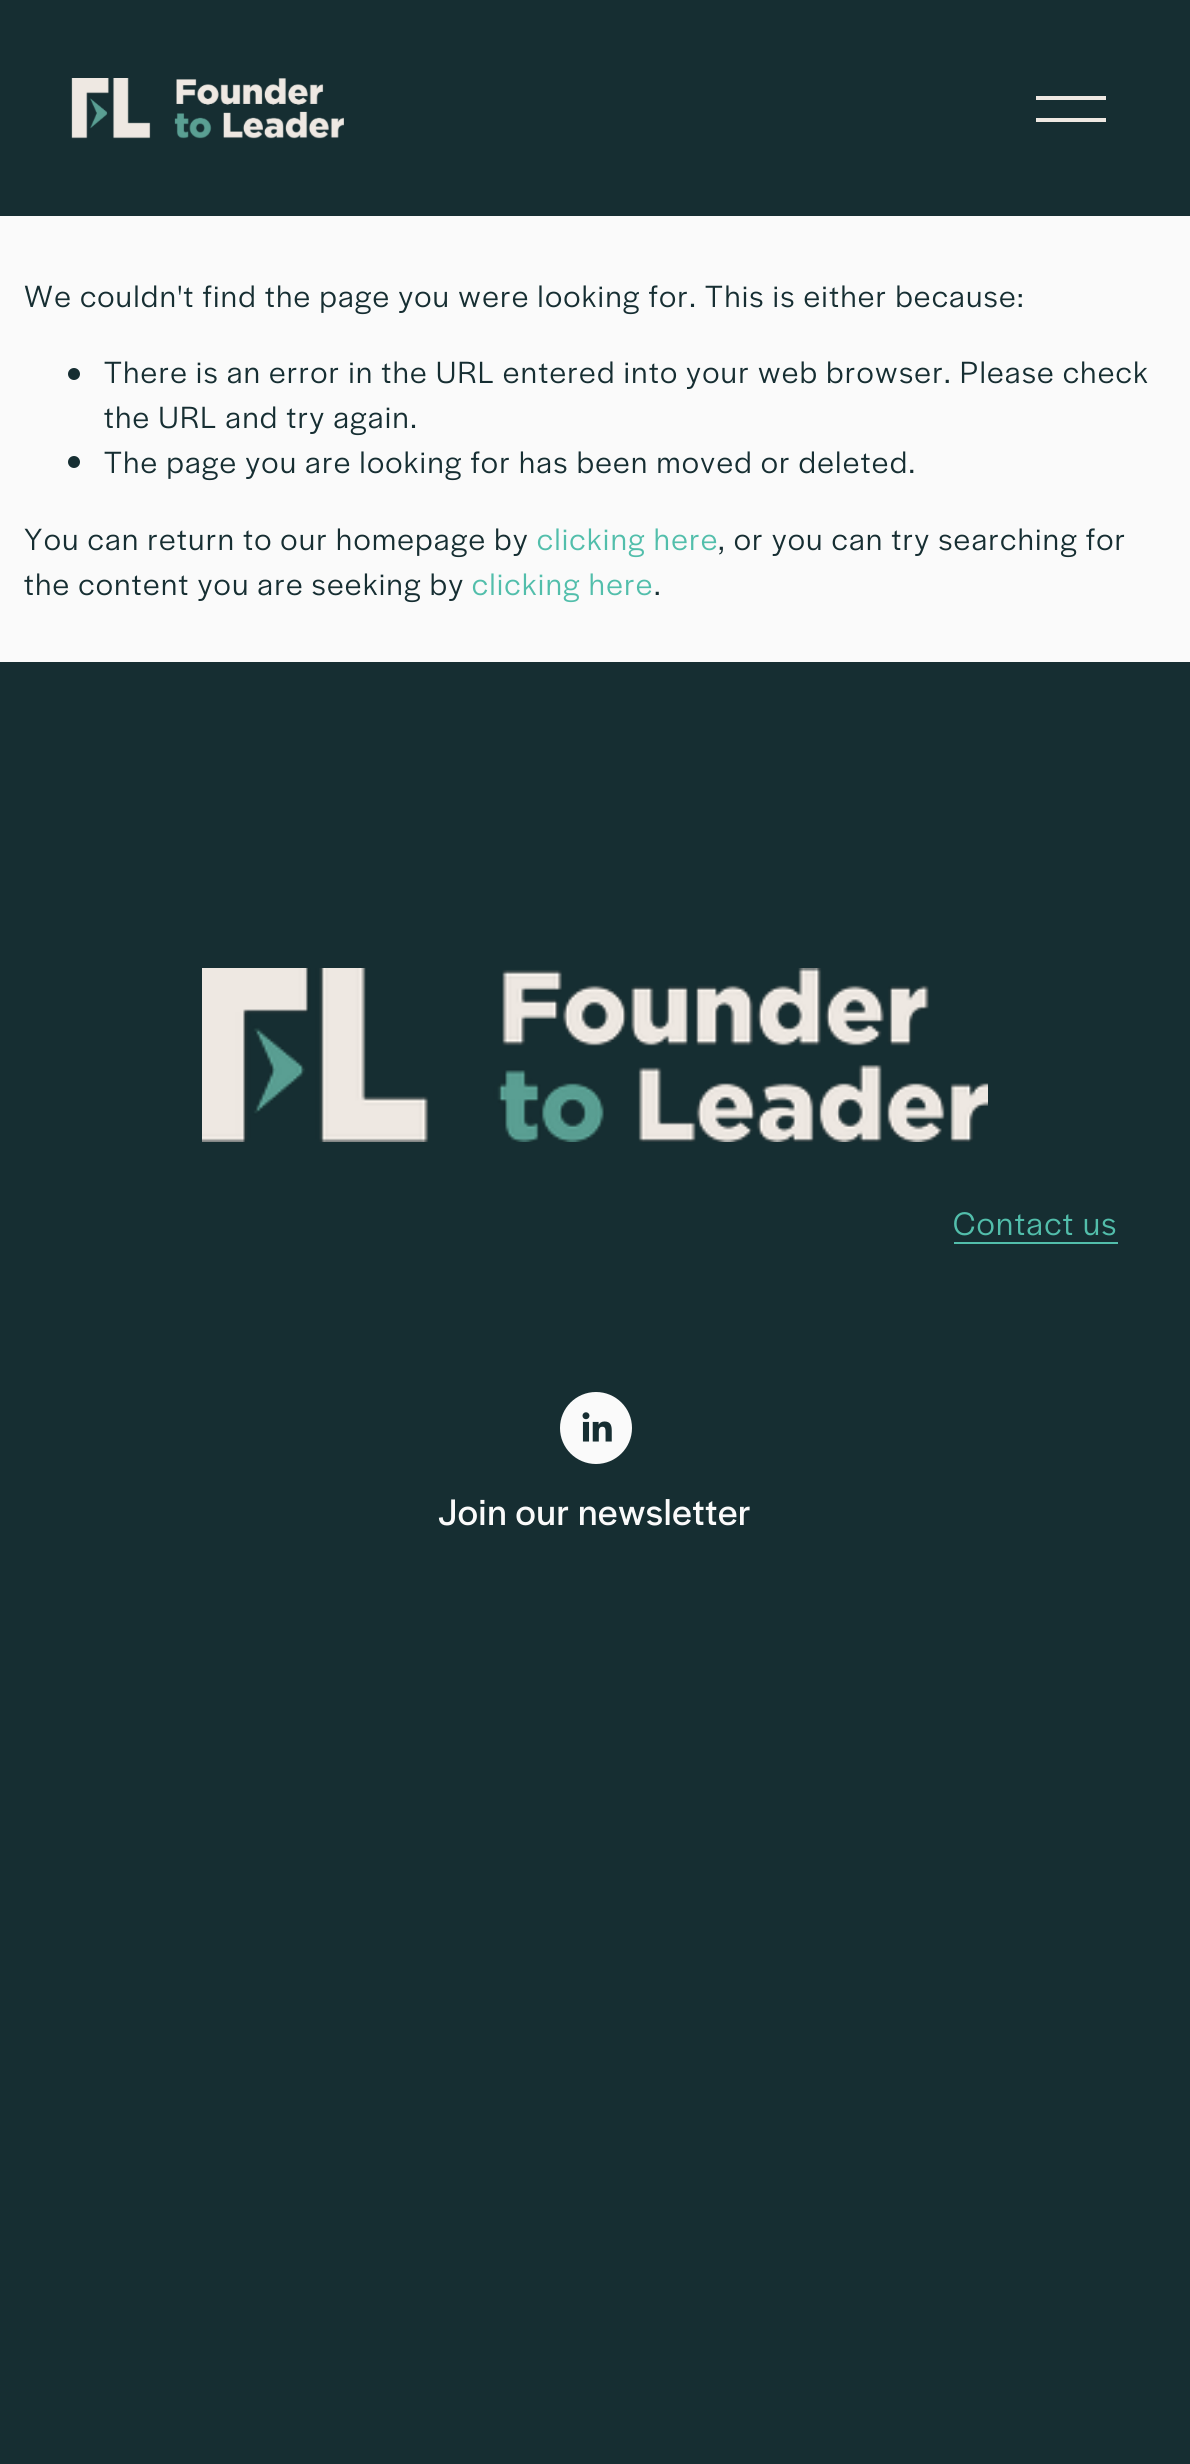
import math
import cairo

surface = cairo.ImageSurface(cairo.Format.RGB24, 1190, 2464)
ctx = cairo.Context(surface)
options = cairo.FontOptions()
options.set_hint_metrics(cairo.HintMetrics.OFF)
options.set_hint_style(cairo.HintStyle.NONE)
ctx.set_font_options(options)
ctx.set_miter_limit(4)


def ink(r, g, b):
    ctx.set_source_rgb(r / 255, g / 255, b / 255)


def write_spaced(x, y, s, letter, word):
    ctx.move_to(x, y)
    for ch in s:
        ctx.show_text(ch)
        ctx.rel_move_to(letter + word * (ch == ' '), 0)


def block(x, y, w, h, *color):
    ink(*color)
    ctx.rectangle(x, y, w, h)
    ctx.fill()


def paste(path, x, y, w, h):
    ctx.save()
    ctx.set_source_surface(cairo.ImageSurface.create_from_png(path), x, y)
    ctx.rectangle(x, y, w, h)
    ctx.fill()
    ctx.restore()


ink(250, 250, 250)
ctx.paint()
block(0, 0, 1190, 216, 22, 46, 50)
paste("pic1.png", 71, 78, 273, 61)
block(1036, 96, 70, 4, 238, 232, 226)
block(1036, 118, 70, 4, 238, 232, 226)
ctx.select_font_face("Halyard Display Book")
ctx.set_font_size(32)
ink(22, 46, 50)
write_spaced(24, 307, "We couldn't find the page you were looking for. This is either because:", 1.6, 0)
ctx.new_path()
ctx.arc(74, 374, 6, 0, 2 * math.pi)
ctx.fill()
write_spaced(104, 383, "There is an error in the URL entered into your web browser. Please check", 1.6, 0)
write_spaced(104, 428, "the URL and try again.", 1.6, 0)
ctx.new_path()
ctx.arc(74, 462, 6, 0, 2 * math.pi)
ctx.fill()
write_spaced(104, 473, "The page you are looking for has been moved or deleted.", 1.6, 0)
write_spaced(24, 550, "You can return to our homepage by", 1.6, 0)
ink(82, 190, 171)
write_spaced(537, 550, "clicking here", 1.6, 0)
ink(22, 46, 50)
write_spaced(718, 550, ", or you can try searching for", 1.6, 0)
write_spaced(24, 595, "the content you are seeking by", 1.6, 0)
ink(82, 190, 171)
write_spaced(472, 595, "clicking here", 1.6, 0)
ink(22, 46, 50)
write_spaced(654, 595, ".", 1.6, 0)
block(0, 662, 1190, 1802, 22, 46, 50)
paste("pic2.png", 202, 968, 786, 174)
ctx.set_font_size(34)
ink(82, 190, 171)
write_spaced(953, 1235, "Contact us", 1.6, 0)
block(954, 1242, 164, 2, 82, 190, 171)
ink(250, 250, 250)
ctx.new_path()
ctx.arc(596, 1428, 36, 0, 2 * math.pi)
ctx.fill()
paste("pic3.png", 582, 1412, 30, 30)
ctx.select_font_face("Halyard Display")
ctx.set_font_size(38.5)
write_spaced(438, 1525, "Join our newsletter", 0.75, 0)
surface.write_to_png("screenshot.png")
